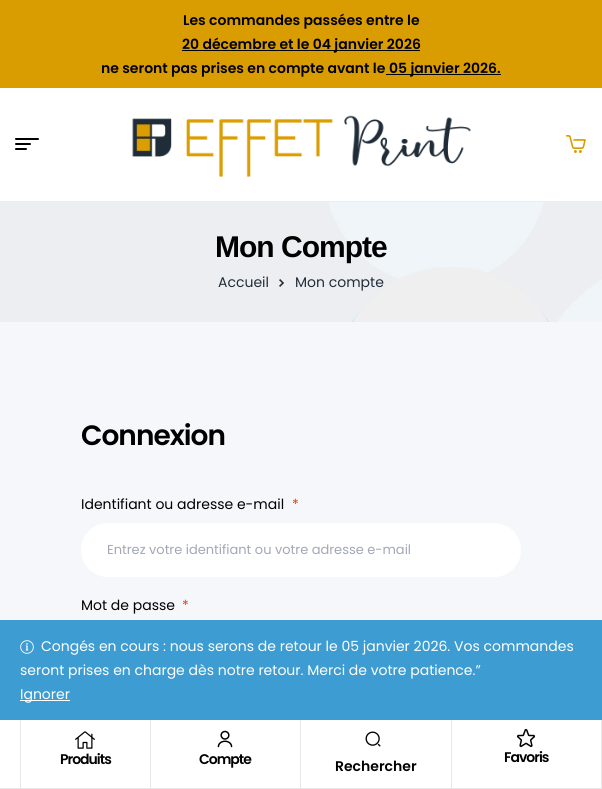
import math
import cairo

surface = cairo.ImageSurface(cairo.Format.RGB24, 602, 789)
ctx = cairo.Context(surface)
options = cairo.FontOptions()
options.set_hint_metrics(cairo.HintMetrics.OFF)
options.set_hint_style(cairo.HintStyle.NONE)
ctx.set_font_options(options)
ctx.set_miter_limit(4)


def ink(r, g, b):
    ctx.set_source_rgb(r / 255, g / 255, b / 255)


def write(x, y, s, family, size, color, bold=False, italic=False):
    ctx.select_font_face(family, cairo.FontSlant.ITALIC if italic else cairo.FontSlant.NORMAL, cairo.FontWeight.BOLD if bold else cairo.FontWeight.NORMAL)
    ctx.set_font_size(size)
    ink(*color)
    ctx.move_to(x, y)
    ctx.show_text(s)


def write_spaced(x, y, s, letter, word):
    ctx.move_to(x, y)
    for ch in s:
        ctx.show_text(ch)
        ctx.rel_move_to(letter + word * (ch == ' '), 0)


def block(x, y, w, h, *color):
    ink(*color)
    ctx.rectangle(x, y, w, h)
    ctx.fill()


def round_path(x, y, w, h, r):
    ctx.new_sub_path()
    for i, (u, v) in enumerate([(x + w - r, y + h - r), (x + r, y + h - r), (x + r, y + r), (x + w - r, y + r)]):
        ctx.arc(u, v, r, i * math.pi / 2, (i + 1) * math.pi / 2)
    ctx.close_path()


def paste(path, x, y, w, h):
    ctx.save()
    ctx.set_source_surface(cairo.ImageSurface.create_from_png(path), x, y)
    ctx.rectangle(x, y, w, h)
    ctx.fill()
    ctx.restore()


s1 = dict(family="Poppins SemiBold", size=14, color=(0, 0, 0))
s2 = dict(family="Poppins", size=14, color=(32, 45, 56))
s3 = dict(family="Poppins", size=14, color=(0, 0, 0))
s4 = dict(family="Poppins", size=14, color=(226, 64, 28))
s5 = dict(family="Poppins", size=13, color=(163, 167, 182))
s6 = dict(family="Poppins", size=14, color=(255, 255, 255))

ink(245, 247, 250)
ctx.paint()
block(0, 0, 602, 88, 218, 157, 1)
write(183, 25, "Les commandes passées entre le", **s1)
block(182, 50, 238, 1, 0, 0, 0)
write(182, 49, "20 décembre et le 04 janvier 2026", **s1)
write(101, 73, "ne seront pas prises en compte avant le", **s1)
block(386, 74, 115, 1, 0, 0, 0)
write(389, 73, "05 janvier 2026.", **s1)
block(0, 88, 602, 113, 255, 255, 255)
block(0, 201, 602, 1, 237, 237, 237)
ink(0, 0, 0)
round_path(15, 138, 24, 2, 1)
ctx.fill()
round_path(15, 143, 16, 2, 1)
ctx.fill()
round_path(15, 148, 12, 2, 1)
ctx.fill()
paste("pic1.png", 132, 115, 339, 62)
paste("pic2.png", 566, 135, 20, 18)
block(0, 202, 329, 120, 237, 238, 241)
paste("pic3.png", 329, 202, 273, 120)
ctx.select_font_face("Liberation Sans", cairo.FontSlant.NORMAL, cairo.FontWeight.BOLD)
ctx.set_font_size(30)
ink(0, 0, 0)
write_spaced(215, 257, "Mon Compte", -1, 0)
write(218, 287, "Accueil", **s2)
paste("pic4.png", 279, 279, 5, 8)
write(295, 287, "Mon compte", **s2)
ctx.select_font_face("Poppins SemiBold")
ctx.set_font_size(28)
ink(0, 0, 0)
write_spaced(81, 445, "Connexion", -1, 0)
write(81, 509, "Identifiant ou adresse e-mail", **s3)
write(292, 509, "*", **s4)
ink(255, 255, 255)
round_path(81, 523, 440, 54, 27)
ctx.fill()
write(107, 554, "Entrez votre identifiant ou votre adresse e-mail", **s5)
write(81, 610, "Mot de passe", **s3)
write(182, 610, "*", **s4)
block(0, 720, 601, 68, 255, 255, 255)
block(0, 788, 602, 1, 232, 232, 232)
block(150, 718, 1, 70, 232, 232, 232)
block(20, 718, 1, 70, 232, 232, 232)
paste("pic5.png", 75, 731, 20, 18)
ctx.select_font_face("Poppins SemiBold")
ink(0, 0, 0)
write_spaced(60, 764, "Produits", -1, 0)
block(300, 718, 1, 70, 232, 232, 232)
paste("pic6.png", 217, 730, 16, 18)
ink(0, 0, 0)
write_spaced(199, 764, "Compte", -1, 0)
block(451, 718, 1, 70, 232, 232, 232)
paste("pic7.png", 365, 731, 16, 16)
write(335, 771, "Rechercher", **s1)
block(601, 718, 1, 70, 232, 232, 232)
paste("pic8.png", 516, 728, 20, 20)
ink(0, 0, 0)
write_spaced(504, 762, "Favoris", -1, 0)
block(0, 620, 602, 100, 61, 156, 210)
paste("pic9.png", 20, 640, 14, 14)
write(41, 651, "Congés en cours : nous serons de retour le 05 janvier 2026. Vos commandes", **s6)
write(20, 675, "seront prises en charge dès notre retour. Merci de votre patience.”", **s6)
block(20, 700, 50, 1, 255, 255, 255)
write(20, 699, "Ignorer", **s6)
surface.write_to_png("screenshot.png")
